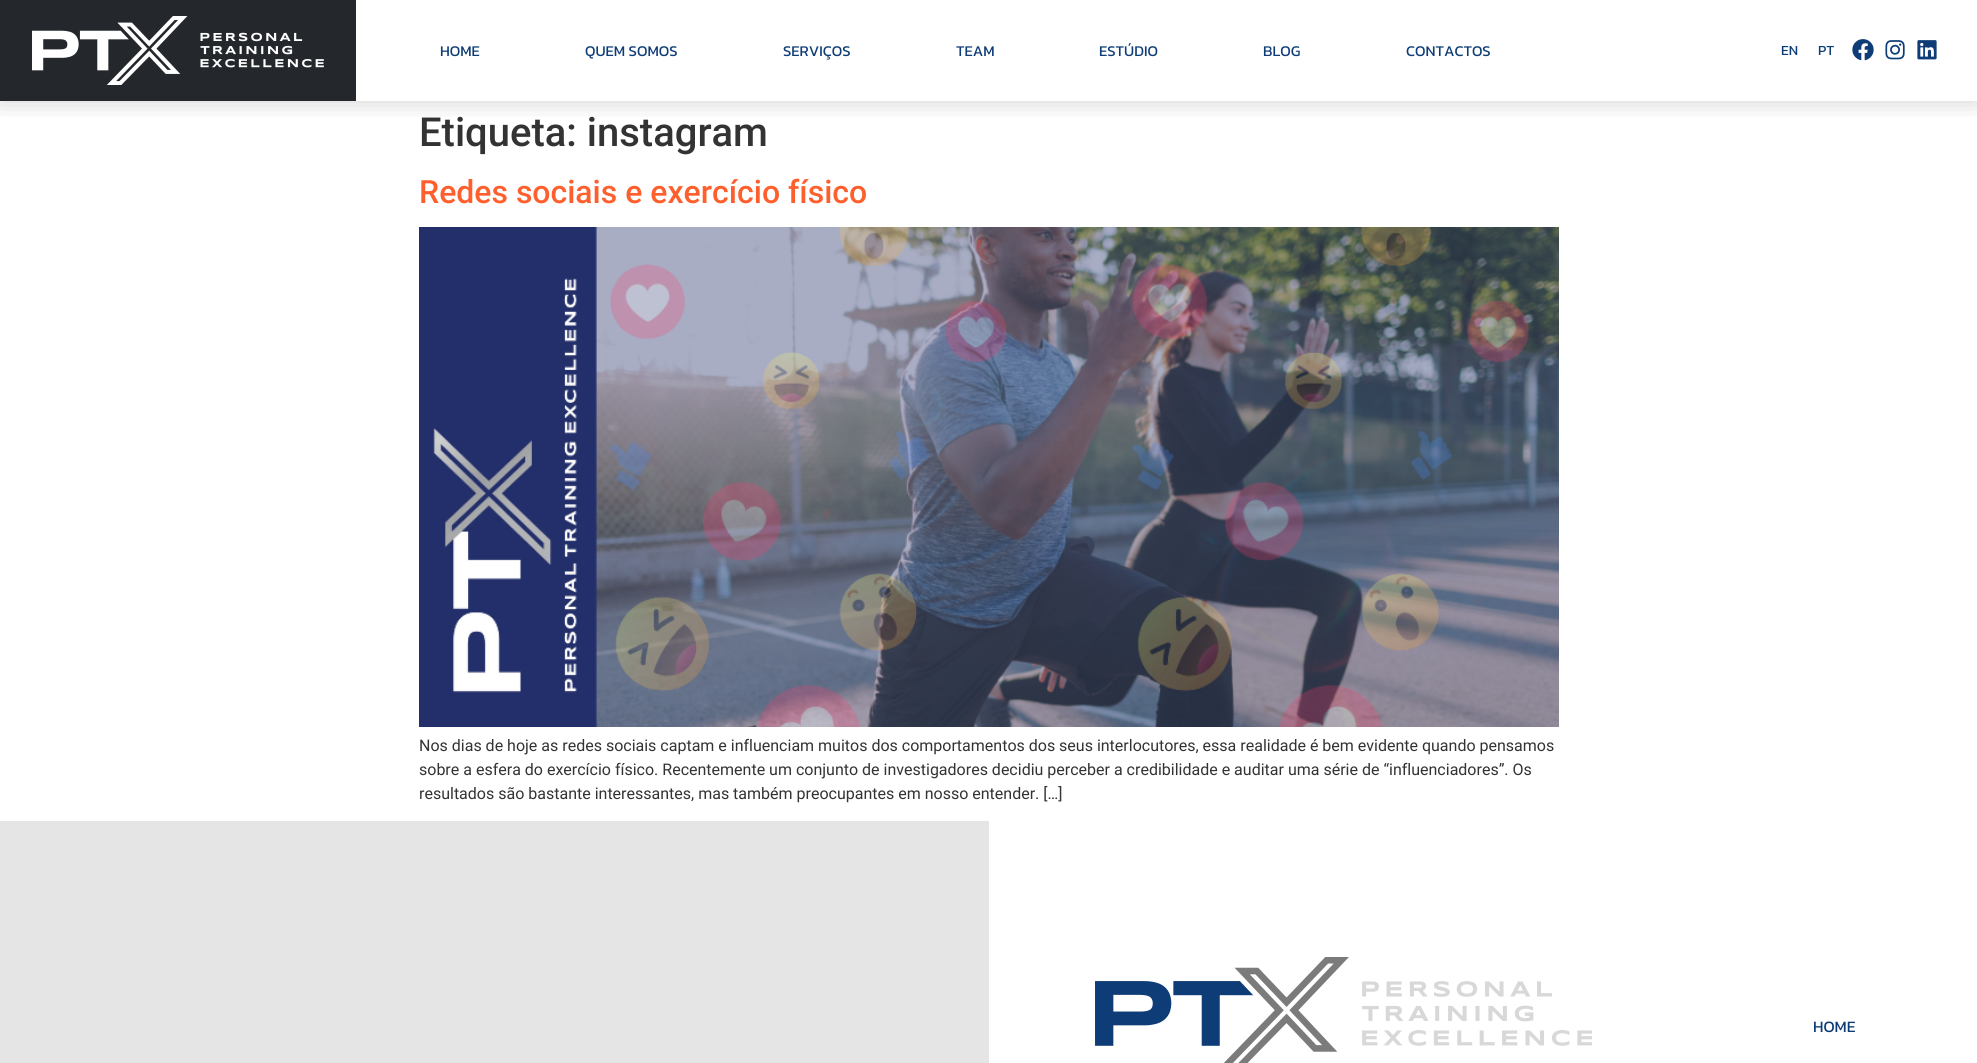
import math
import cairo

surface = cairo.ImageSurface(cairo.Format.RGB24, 1977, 1063)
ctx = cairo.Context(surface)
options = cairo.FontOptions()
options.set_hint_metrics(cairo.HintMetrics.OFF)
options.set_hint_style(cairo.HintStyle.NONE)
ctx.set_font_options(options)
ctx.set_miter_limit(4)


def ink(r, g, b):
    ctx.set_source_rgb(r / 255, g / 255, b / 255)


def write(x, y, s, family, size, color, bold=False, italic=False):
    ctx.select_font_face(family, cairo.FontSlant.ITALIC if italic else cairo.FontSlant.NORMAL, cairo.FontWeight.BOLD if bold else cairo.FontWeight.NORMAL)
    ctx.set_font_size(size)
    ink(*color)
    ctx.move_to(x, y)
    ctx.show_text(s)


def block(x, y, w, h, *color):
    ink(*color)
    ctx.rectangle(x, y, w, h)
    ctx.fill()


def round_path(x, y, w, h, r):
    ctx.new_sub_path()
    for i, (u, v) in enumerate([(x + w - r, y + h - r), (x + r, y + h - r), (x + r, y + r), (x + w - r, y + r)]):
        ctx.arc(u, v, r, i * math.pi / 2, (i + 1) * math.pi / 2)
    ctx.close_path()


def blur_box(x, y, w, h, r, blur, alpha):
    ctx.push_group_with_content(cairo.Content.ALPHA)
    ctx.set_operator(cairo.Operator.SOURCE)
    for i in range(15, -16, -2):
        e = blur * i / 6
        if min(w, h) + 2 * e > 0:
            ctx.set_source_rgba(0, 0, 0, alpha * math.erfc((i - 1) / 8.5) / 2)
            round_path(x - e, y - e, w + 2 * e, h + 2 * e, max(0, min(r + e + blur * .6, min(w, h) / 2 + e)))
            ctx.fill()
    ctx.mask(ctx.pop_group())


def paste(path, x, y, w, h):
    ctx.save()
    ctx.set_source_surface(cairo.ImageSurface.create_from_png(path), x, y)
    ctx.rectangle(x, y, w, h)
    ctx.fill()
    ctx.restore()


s1 = dict(family="Kanit", size=15, color=(14, 60, 119))
s2 = dict(family="Kanit", size=14, color=(14, 60, 119))
s3 = dict(family="Roboto Medium", size=40, color=(51, 51, 51))
s4 = dict(family="Roboto Medium", size=32, color=(255, 95, 45))
s5 = dict(family="Roboto", size=16, color=(51, 51, 51))
s6 = dict(family="Kanit", size=16, color=(14, 60, 119))

ink(255, 255, 255)
ctx.paint()
ctx.save()
ctx.rectangle(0, 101, 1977, 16)
ctx.clip()
ink(0, 0, 0)
blur_box(0, 0, 1977, 101, 0, 12.5, 0.19)
ctx.restore()
block(0, 0, 356, 101, 36, 40, 45)
paste("pic1.png", 32, 16, 292, 69)
write(440, 56, "HOME", **s1)
write(585, 56, "QUEM SOMOS", **s1)
write(783, 56, "SERVIÇOS", **s1)
write(956, 56, "TEAM", **s1)
write(1099, 56, "ESTÚDIO", **s1)
write(1263, 56, "BLOG", **s1)
write(1406, 56, "CONTACTOS", **s1)
write(1781, 55, "EN", **s2)
write(1818, 55, "PT", **s2)
paste("pic2.png", 1852, 39, 22, 22)
paste("pic3.png", 1885, 40, 20, 20)
paste("pic4.png", 1917, 40, 20, 20)
write(419, 146, "Etiqueta: instagram", **s3)
write(419, 203, "Redes sociais e exercício físico", **s4)
paste("pic5.png", 419, 227, 1140, 500)
write(419, 751, "Nos dias de hoje as redes sociais captam e influenciam muitos dos comportamentos dos seus interlocutores, essa realidade é bem evidente quando pensamos", **s5)
write(419, 775, "sobre a esfera do exercício físico. Recentemente um conjunto de investigadores decidiu perceber a credibilidade e auditar uma série de “influenciadores”. Os", **s5)
write(419, 799, "resultados são bastante interessantes, mas também preocupantes em nosso entender. […]", **s5)
block(0, 821, 989, 242, 229, 229, 229)
paste("pic6.png", 1095, 957, 497, 106)
write(1813, 1032, "HOME", **s6)
surface.write_to_png("screenshot.png")
